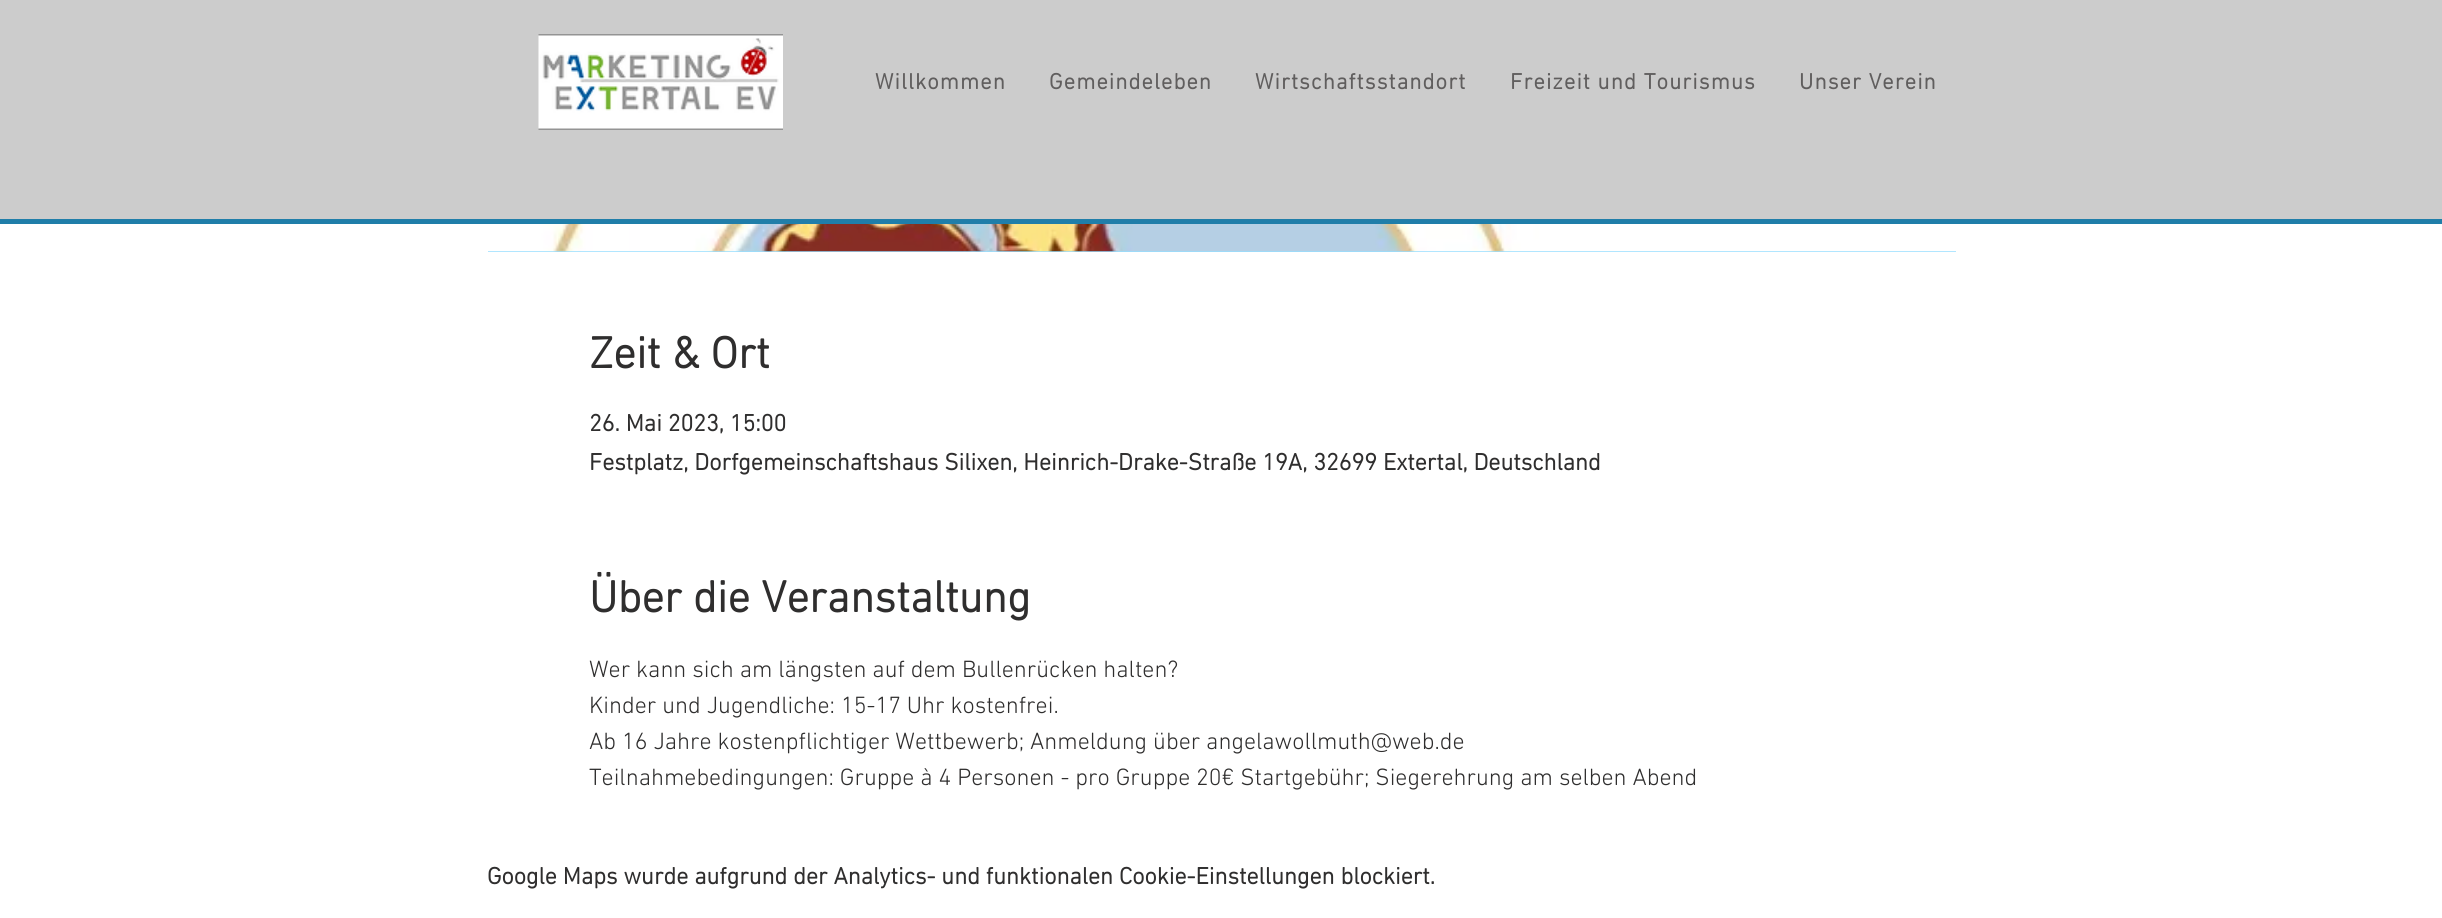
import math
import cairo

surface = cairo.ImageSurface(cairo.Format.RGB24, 2442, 918)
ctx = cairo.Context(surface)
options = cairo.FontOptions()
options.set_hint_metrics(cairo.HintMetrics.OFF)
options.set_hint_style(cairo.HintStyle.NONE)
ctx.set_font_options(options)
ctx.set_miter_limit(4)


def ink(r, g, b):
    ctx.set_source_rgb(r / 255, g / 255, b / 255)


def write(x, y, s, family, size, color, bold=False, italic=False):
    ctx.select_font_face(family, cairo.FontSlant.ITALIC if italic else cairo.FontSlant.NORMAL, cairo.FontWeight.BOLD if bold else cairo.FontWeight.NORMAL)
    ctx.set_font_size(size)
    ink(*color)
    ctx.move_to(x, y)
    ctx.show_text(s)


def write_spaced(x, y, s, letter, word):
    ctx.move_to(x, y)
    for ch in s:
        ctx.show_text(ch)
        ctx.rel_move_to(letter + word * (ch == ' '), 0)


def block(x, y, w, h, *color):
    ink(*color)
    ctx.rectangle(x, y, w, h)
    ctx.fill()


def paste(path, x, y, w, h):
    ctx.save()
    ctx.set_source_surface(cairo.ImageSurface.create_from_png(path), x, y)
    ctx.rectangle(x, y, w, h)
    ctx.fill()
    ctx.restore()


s1 = dict(family="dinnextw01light", size=45, color=(47, 46, 46), bold=True)
s2 = dict(family="dinnextw01light", size=24, color=(47, 46, 46), bold=True)
s3 = dict(family="dinnextw01light Light", size=24, color=(47, 46, 46))

ink(255, 255, 255)
ctx.paint()
block(0, 219, 2442, 5, 32, 126, 169)
block(0, 0, 2442, 219, 204, 204, 204)
paste("pic1.png", 538, 34, 245, 96)
ctx.select_font_face("dinnextw01light", cairo.FontSlant.NORMAL, cairo.FontWeight.BOLD)
ctx.set_font_size(22.5)
ink(96, 94, 94)
write_spaced(875, 89, "Willkommen", 1.1, 0)
write_spaced(1049, 89, "Gemeindeleben", 1.1, 0)
write_spaced(1255, 89, "Wirtschaftsstandort", 1.1, 0)
write_spaced(1510, 89, "Freizeit und Tourismus", 1.1, 0)
write_spaced(1799, 89, "Unser Verein", 1.1, 0)
block(488, 251, 1468, 1, 151, 222, 255)
paste("pic2.png", 487, 224, 1469, 28)
write(589, 368, "Zeit & Ort", **s1)
write(589, 431, "26. Mai 2023, 15:00", **s2)
write(589, 470, "Festplatz, Dorfgemeinschaftshaus Silixen, Heinrich-Drake-Straße 19A, 32699 Extertal, Deutschland", **s2)
write(589, 612, "Über die Veranstaltung", **s1)
write(589, 677, "Wer kann sich am längsten auf dem Bullenrücken halten?", **s3)
write(589, 713, "Kinder und Jugendliche: 15-17 Uhr kostenfrei.", **s3)
write(589, 749, "Ab 16 Jahre kostenpflichtiger Wettbewerb; Anmeldung über angelawollmuth@web.de", **s3)
write(589, 785, "Teilnahmebedingungen: Gruppe à 4 Personen - pro Gruppe 20€ Startgebühr; Siegerehrung am selben Abend", **s3)
write(487, 884, "Google Maps wurde aufgrund der Analytics- und funktionalen Cookie-Einstellungen blockiert.", **s2)
surface.write_to_png("screenshot.png")
